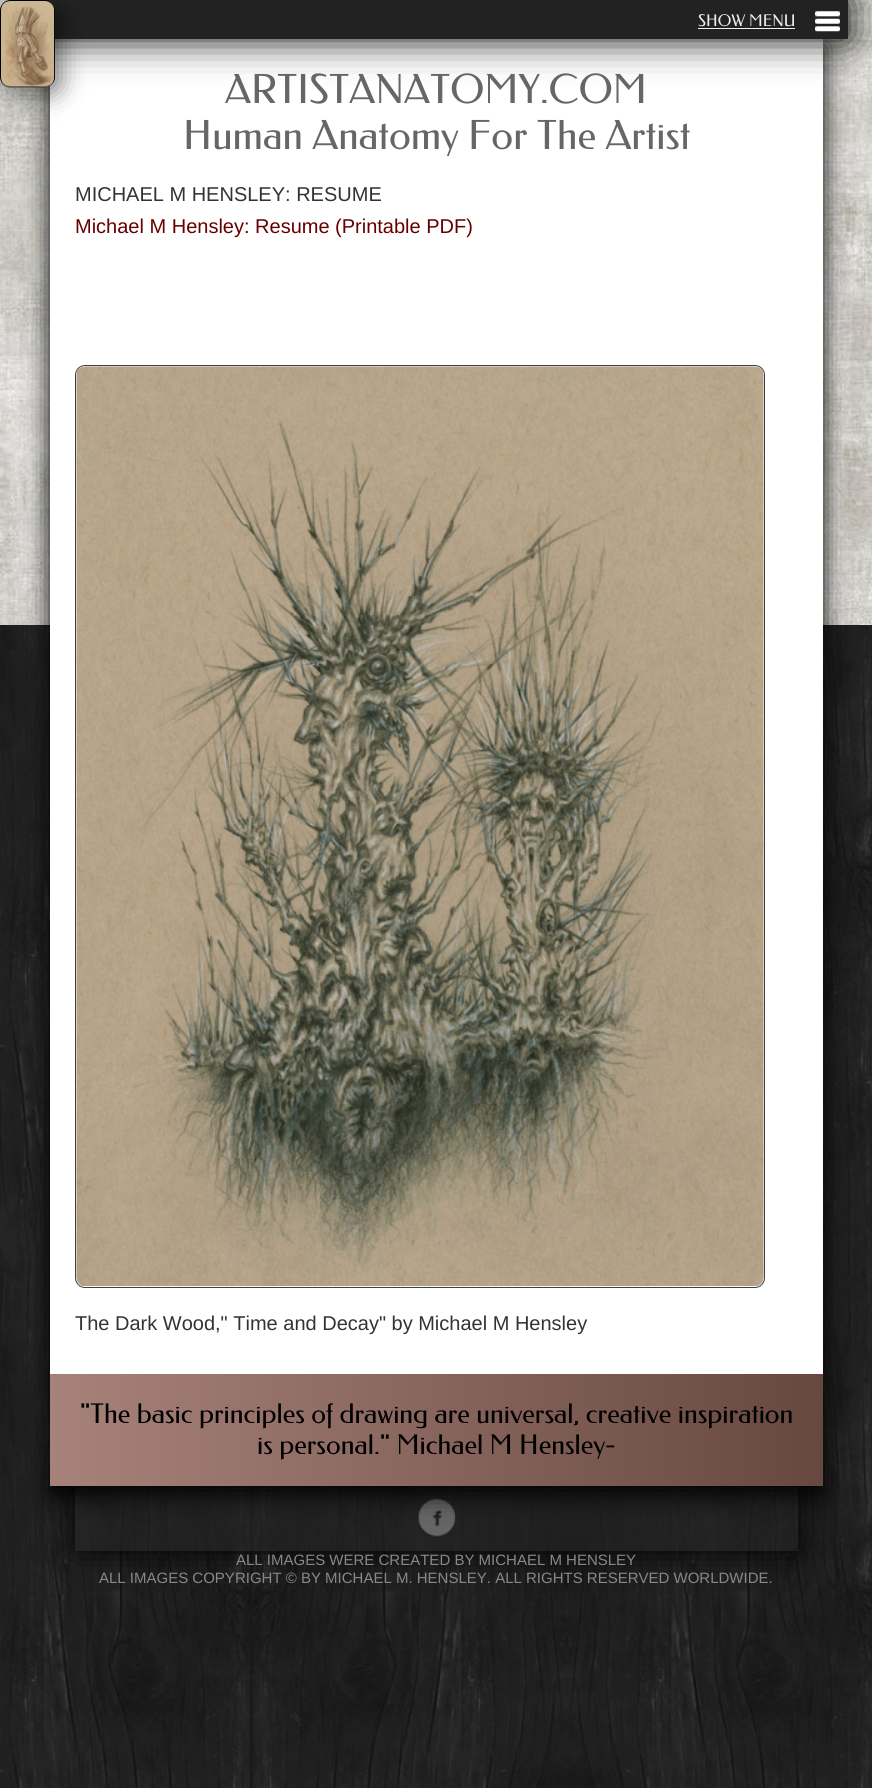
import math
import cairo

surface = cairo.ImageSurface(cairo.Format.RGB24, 872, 1788)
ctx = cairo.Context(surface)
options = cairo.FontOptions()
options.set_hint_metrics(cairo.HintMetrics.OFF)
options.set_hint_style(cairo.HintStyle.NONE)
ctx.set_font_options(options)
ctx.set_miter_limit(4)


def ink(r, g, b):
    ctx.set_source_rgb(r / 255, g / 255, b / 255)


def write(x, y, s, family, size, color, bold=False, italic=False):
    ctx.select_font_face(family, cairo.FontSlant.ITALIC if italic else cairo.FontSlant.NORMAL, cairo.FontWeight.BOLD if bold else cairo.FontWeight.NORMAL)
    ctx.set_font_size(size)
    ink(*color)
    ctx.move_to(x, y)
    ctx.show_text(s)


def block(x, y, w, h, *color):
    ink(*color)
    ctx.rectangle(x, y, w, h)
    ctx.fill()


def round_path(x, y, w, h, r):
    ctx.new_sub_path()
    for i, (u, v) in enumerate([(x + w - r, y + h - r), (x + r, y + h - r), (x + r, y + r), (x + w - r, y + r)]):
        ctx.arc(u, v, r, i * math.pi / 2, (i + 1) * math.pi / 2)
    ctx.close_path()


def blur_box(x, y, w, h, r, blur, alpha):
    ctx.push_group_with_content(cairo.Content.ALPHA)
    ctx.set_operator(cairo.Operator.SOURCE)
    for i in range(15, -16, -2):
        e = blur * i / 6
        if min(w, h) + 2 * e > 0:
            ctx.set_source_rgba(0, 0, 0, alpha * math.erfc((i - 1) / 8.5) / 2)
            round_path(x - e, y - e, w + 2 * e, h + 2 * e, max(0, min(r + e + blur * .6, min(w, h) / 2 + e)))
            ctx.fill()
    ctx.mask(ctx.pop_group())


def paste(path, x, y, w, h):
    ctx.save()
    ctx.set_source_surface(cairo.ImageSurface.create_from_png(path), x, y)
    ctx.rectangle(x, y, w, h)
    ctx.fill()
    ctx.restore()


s1 = dict(family="Federo", size=16, color=(238, 238, 238))
s2 = dict(family="Federo", size=40, color=(102, 102, 102))
s3 = dict(family="Liberation Sans", size=20, color=(51, 51, 51))
s4 = dict(family="Liberation Sans", size=20, color=(102, 0, 0))
s5 = dict(family="Federo", size=27, color=(0, 0, 0))
s6 = dict(family="Liberation Sans", size=15, color=(136, 136, 136))

ink(255, 255, 255)
ctx.paint()
paste("pic1.png", 0, 0, 872, 1788)
ctx.save()
ctx.set_fill_rule(cairo.FillRule.EVEN_ODD)
ctx.new_path()
ctx.move_to(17, 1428)
ctx.line_to(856, 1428)
ctx.line_to(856, 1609)
ctx.line_to(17, 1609)
ctx.close_path()
ctx.move_to(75, 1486)
ctx.line_to(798, 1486)
ctx.line_to(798, 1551)
ctx.line_to(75, 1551)
ctx.close_path()
ctx.clip()
ink(0, 0, 0)
blur_box(75, 1486, 723, 65, 0, 19, 1)
ctx.restore()
ctx.set_source_rgba(0.133, 0.133, 0.133, 0.65)
ctx.rectangle(75, 1486, 723, 65)
ctx.fill()
paste("pic5.png", 418, 1498, 38, 40)
ink(0, 0, 0)
blur_box(50, 46, 773, 1448, 0, 12.5, 1)
block(50, 39, 773, 1335, 255, 255, 255)
ink(0, 0, 0)
blur_box(25, 0, 823, 39, 0, 19, 1)
block(44, 0, 804, 39, 34, 34, 34)
ctx.save()
ctx.set_fill_rule(cairo.FillRule.EVEN_ODD)
ctx.new_path()
ctx.move_to(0, 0)
ctx.line_to(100, 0)
ctx.line_to(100, 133)
ctx.line_to(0, 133)
ctx.close_path()
ctx.move_to(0, 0)
ctx.line_to(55, 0)
ctx.line_to(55, 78)
ctx.curve_to(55, 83.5, 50.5, 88, 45, 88)
ctx.line_to(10, 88)
ctx.curve_to(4.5, 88, 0, 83.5, 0, 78)
ctx.close_path()
ctx.clip()
ink(0, 0, 0)
blur_box(6, 6, 55, 88, 10, 12.5, 0.5)
ctx.restore()
paste("pic2.png", 0, 0, 55, 88)
write(698, 26, "SHOW MENU", **s1)
block(698, 28, 97, 1, 238, 238, 238)
paste("pic3.png", 815, 11, 25, 21)
write(225, 103, "ARTISTANATOMY.COM", **s2)
write(183, 149, "Human Anatomy For The Artist", **s2)
write(75, 201, "MICHAEL M HENSLEY: RESUME", **s3)
write(75, 233, "Michael M Hensley: Resume (Printable PDF)", **s4)
round_path(75.5, 365.5, 689, 922, 9.5)
ink(64, 64, 64)
ctx.set_line_width(1)
ctx.stroke()
paste("pic4.png", 76, 366, 688, 921)
write(75, 1330, "The Dark Wood,\" Time and Decay\" by Michael M Hensley", **s3)
gradient = cairo.LinearGradient(50, 1430, 823, 1430)
gradient.add_color_stop_rgba(0, 0.655, 0.51, 0.478, 1)
gradient.add_color_stop_rgba(1, 0.404, 0.282, 0.247, 1)
ctx.set_source(gradient)
ctx.rectangle(50, 1374, 773, 112)
ctx.fill()
write(80, 1423, "\"The basic principles of drawing are universal, creative inspiration", **s5)
write(257, 1454, "is personal.\" Michael M Hensley-", **s5)
write(236, 1565, "ALL IMAGES WERE CREATED BY MICHAEL M HENSLEY", **s6)
write(99, 1583, "ALL IMAGES COPYRIGHT © BY MICHAEL M. HENSLEY. ALL RIGHTS RESERVED WORLDWIDE.", **s6)
surface.write_to_png("screenshot.png")
